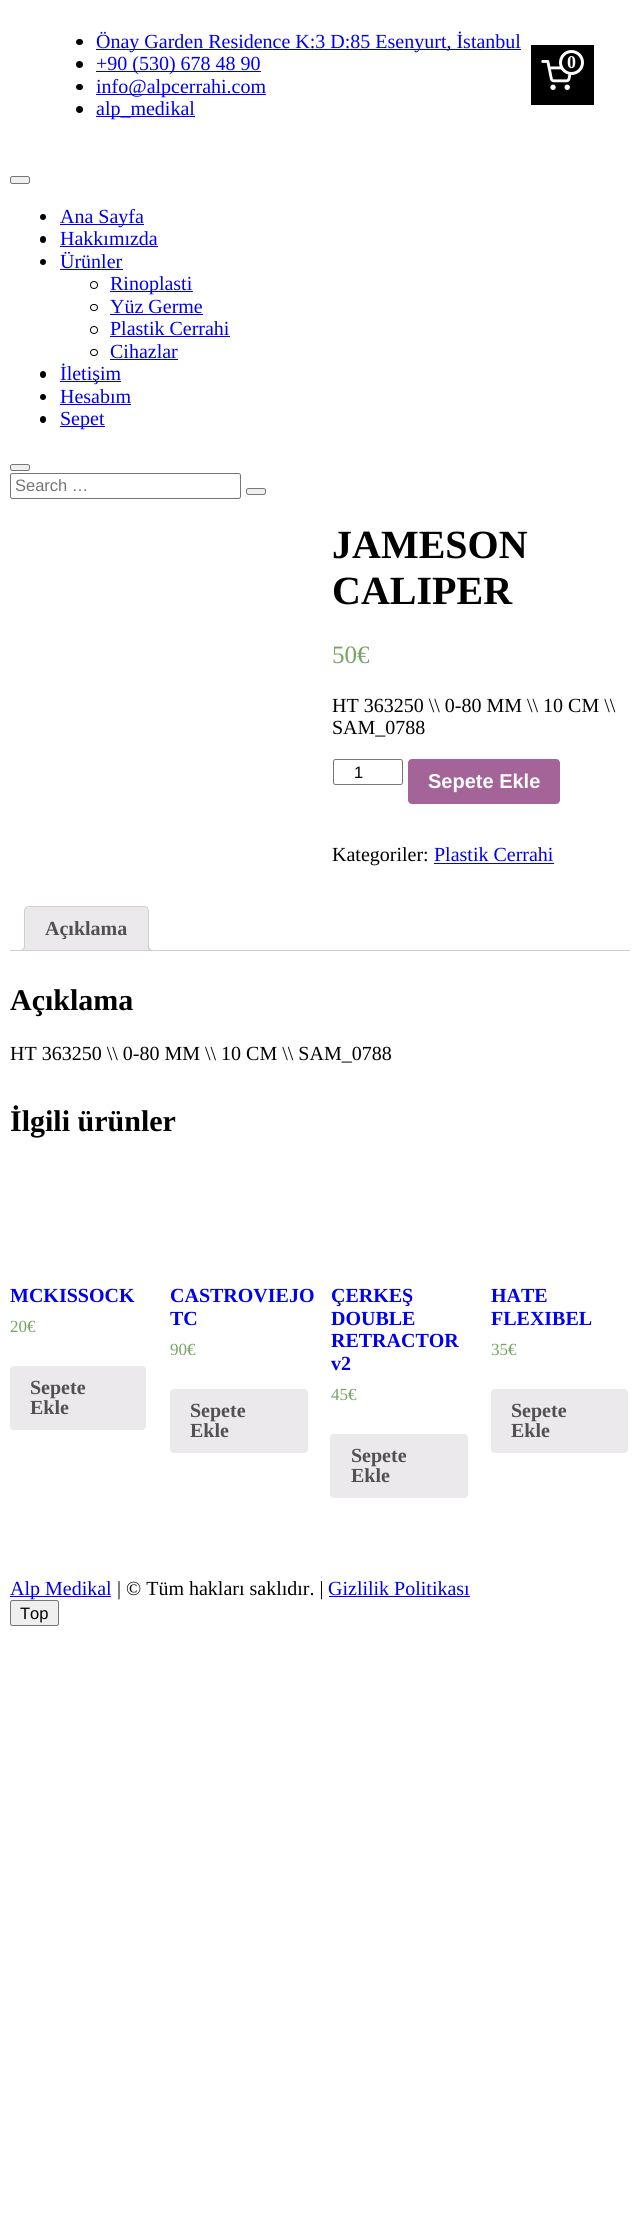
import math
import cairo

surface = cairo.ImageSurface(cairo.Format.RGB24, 640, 2223)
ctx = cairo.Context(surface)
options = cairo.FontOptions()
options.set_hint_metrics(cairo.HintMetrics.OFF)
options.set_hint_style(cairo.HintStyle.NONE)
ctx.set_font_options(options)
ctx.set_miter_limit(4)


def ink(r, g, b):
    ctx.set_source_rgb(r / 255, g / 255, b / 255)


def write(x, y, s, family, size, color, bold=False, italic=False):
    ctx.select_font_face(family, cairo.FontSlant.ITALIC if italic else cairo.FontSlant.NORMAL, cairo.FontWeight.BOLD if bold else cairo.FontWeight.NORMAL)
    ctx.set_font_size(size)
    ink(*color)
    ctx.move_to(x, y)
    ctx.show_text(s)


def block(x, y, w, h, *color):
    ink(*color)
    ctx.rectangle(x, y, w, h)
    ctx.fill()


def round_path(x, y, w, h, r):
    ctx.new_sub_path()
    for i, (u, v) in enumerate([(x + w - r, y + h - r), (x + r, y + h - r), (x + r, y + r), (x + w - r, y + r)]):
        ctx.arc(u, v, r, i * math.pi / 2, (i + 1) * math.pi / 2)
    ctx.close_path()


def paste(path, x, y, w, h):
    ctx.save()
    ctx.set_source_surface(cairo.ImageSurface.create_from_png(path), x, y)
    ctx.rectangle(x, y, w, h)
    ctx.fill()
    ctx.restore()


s1 = dict(family="Liberation Serif", size=20, color=(0, 0, 238))
s2 = dict(family="Liberation Serif", size=18, color=(255, 255, 255), bold=True)
s3 = dict(family="Liberation Sans", size=16.5, color=(117, 117, 117))
s4 = dict(family="Liberation Serif", size=40, color=(0, 0, 0), bold=True)
s5 = dict(family="Liberation Serif", size=25, color=(119, 164, 100))
s6 = dict(family="Liberation Serif", size=20, color=(0, 0, 0))
s7 = dict(family="Liberation Sans", size=16.5, color=(0, 0, 0))
s8 = dict(family="Liberation Sans", size=20, color=(255, 255, 255), bold=True)
s9 = dict(family="Liberation Serif", size=20, color=(81, 81, 81), bold=True)
s10 = dict(family="Liberation Serif", size=30, color=(0, 0, 0), bold=True)
s11 = dict(family="Liberation Serif", size=20, color=(0, 0, 238), bold=True)
s12 = dict(family="Liberation Serif", size=17, color=(119, 164, 100))

ink(255, 255, 255)
ctx.paint()
ink(0, 0, 0)
round_path(76, 39, 7, 6, 3)
ctx.fill()
block(96, 49, 425, 1, 0, 0, 238)
write(96, 48, "Önay Garden Residence K:3 D:85 Esenyurt, İstanbul", **s1)
ink(0, 0, 0)
ctx.new_path()
ctx.arc(79.5, 64.5, 3.5, 0, 2 * math.pi)
ctx.fill()
block(96, 71, 165, 1, 0, 0, 238)
write(96, 70, "+90 (530) 678 48 90", **s1)
ink(0, 0, 0)
round_path(76, 84, 7, 6, 3)
ctx.fill()
block(96, 94, 170, 1, 0, 0, 238)
write(96, 93, "info@alpcerrahi.com", **s1)
ink(0, 0, 0)
ctx.new_path()
ctx.arc(79.5, 109.5, 3.5, 0, 2 * math.pi)
ctx.fill()
block(96, 116, 99, 1, 0, 0, 238)
write(96, 115, "alp_medikal", **s1)
block(531, 45, 63, 60, 0, 0, 0)
paste("pic1.png", 541, 60, 30, 30)
ctx.arc(571.5, 62.5, 11, 0, 2 * math.pi)
ink(255, 255, 255)
ctx.set_line_width(3)
ctx.stroke()
write(567, 68, "0", **s2)
ink(239, 239, 239)
round_path(10.5, 176.5, 19, 7, 2)
ctx.fill_preserve()
ink(118, 118, 118)
ctx.set_line_width(1)
ctx.stroke()
ink(0, 0, 0)
ctx.arc(43, 217, 3, 0, 2 * math.pi)
ctx.fill()
block(60, 224, 84, 1, 0, 0, 238)
write(60, 223, "Ana Sayfa", **s1)
ink(0, 0, 0)
round_path(40, 236, 6, 7, 3)
ctx.fill()
write(60, 245, "Hakkımızda", **s1)
block(60, 246, 98, 1, 0, 0, 238)
ink(0, 0, 0)
ctx.new_path()
ctx.arc(43, 262, 3, 0, 2 * math.pi)
ctx.fill()
write(60, 268, "Ürünler", **s1)
block(60, 269, 63, 1, 0, 0, 238)
ctx.new_path()
ctx.arc(94, 285, 3.5, 0, 2 * math.pi)
ink(0, 0, 0)
ctx.stroke()
block(110, 291, 83, 1, 0, 0, 238)
write(110, 290, "Rinoplasti", **s1)
round_path(90.5, 304.5, 7, 6, 3)
ink(0, 0, 0)
ctx.stroke()
write(110, 313, "Yüz Germe", **s1)
block(110, 314, 93, 1, 0, 0, 238)
ctx.new_path()
ctx.arc(94, 330, 3.5, 0, 2 * math.pi)
ink(0, 0, 0)
ctx.stroke()
write(110, 335, "Plastik Cerrahi", **s1)
block(110, 336, 120, 1, 0, 0, 238)
round_path(90.5, 349.5, 7, 6, 3)
ink(0, 0, 0)
ctx.stroke()
write(110, 358, "Cihazlar", **s1)
block(110, 359, 68, 1, 0, 0, 238)
ink(0, 0, 0)
round_path(40, 371, 6, 7, 3)
ctx.fill()
block(60, 381, 61, 1, 0, 0, 238)
write(60, 380, "İletişim", **s1)
ink(0, 0, 0)
ctx.new_path()
ctx.arc(43, 397, 3, 0, 2 * math.pi)
ctx.fill()
write(60, 403, "Hesabım", **s1)
block(60, 404, 71, 1, 0, 0, 238)
ink(0, 0, 0)
round_path(40, 416, 6, 7, 3)
ctx.fill()
block(60, 426, 45, 1, 0, 0, 238)
write(60, 425, "Sepet", **s1)
ink(239, 239, 239)
round_path(10.5, 464.5, 19, 6, 2)
ctx.fill_preserve()
ink(118, 118, 118)
ctx.stroke()
round_path(10.5, 473.5, 230, 25, 2)
ctx.stroke()
write(15, 491, "Search …", **s3)
ink(239, 239, 239)
round_path(246.5, 488.5, 19, 6, 2)
ctx.fill_preserve()
ink(118, 118, 118)
ctx.stroke()
write(332, 558, "JAMESON", **s4)
write(332, 604, "CALIPER", **s4)
write(332, 663, "50€", **s5)
write(332, 712, "HT 363250 \\\\ 0-80 MM \\\\ 10 CM \\\\", **s6)
write(332, 734, "SAM_0788", **s6)
round_path(333.5, 759.5, 69, 25, 2)
ink(118, 118, 118)
ctx.stroke()
write(354, 778, "1", **s7)
ink(164, 100, 151)
round_path(408, 759, 152, 45, 4)
ctx.fill()
write(428, 788, "Sepete Ekle", **s8)
write(332, 861, "Kategoriler:", **s6)
write(434, 861, "Plastik Cerrahi", **s1)
block(434, 863, 120, 1, 0, 0, 238)
ink(235, 233, 235)
ctx.new_path()
ctx.move_to(29, 906.5)
ctx.line_to(144, 906.5)
ctx.curve_to(146.5, 906.5, 148.5, 908.5, 148.5, 911)
ctx.line_to(148.5, 950.5)
ctx.line_to(24.5, 950.5)
ctx.line_to(24.5, 911)
ctx.curve_to(24.5, 908.5, 26.5, 906.5, 29, 906.5)
ctx.close_path()
ctx.fill_preserve()
ink(211, 206, 210)
ctx.stroke()
write(45, 935, "Açıklama", **s9)
ctx.save()
ctx.rectangle(10, 906, 620, 45)
ctx.clip()
ink(235, 233, 235)
ctx.new_path()
ctx.move_to(21, 951)
ctx.line_to(21, 954)
ctx.curve_to(25.5, 954, 28, 953, 28, 948)
ctx.line_to(24.5, 948)
ctx.curve_to(24, 949.5, 22.5, 951, 21, 951)
ctx.close_path()
ctx.fill()
ctx.restore()
ink(211, 206, 210)
ctx.set_fill_rule(cairo.FillRule.EVEN_ODD)
ctx.new_path()
ctx.move_to(19, 945)
ctx.line_to(25, 945)
ctx.curve_to(25, 949.5, 23, 951, 19, 951)
ctx.close_path()
ctx.move_to(19, 945)
ctx.line_to(24, 945)
ctx.curve_to(24, 948.5, 22.5, 950, 19, 950)
ctx.close_path()
ctx.fill()
ctx.save()
ctx.set_fill_rule(cairo.FillRule.WINDING)
ctx.rectangle(10, 906, 620, 45)
ctx.clip()
ink(235, 233, 235)
ctx.new_path()
ctx.move_to(145, 948)
ctx.curve_to(145, 952, 147, 954, 151, 954)
ctx.line_to(151, 951)
ctx.curve_to(149.5, 950.5, 148.5, 949.5, 148, 948)
ctx.close_path()
ctx.fill()
ctx.restore()
ctx.new_path()
ctx.move_to(147.5, 945)
ctx.line_to(154, 945)
ctx.line_to(154, 951)
ctx.curve_to(150.5, 951, 147.5, 950, 147.5, 946)
ctx.close_path()
ctx.move_to(149, 945)
ctx.line_to(154, 945)
ctx.line_to(154, 950)
ctx.curve_to(151.5, 950, 149, 949, 149, 946)
ctx.close_path()
ctx.fill()
block(10, 950, 620, 1, 211, 206, 210)
write(10, 1010, "Açıklama", **s10)
write(10, 1060, "HT 363250 \\\\ 0-80 MM \\\\ 10 CM \\\\ SAM_0788", **s6)
write(10, 1131, "İlgili ürünler", **s10)
write(10, 1302, "MCKISSOCK", **s11)
write(10, 1332, "20€", **s12)
ink(235, 233, 235)
round_path(10, 1366, 136, 64, 4)
ctx.fill()
write(30, 1394, "Sepete", **s9)
write(30, 1414, "Ekle", **s9)
write(170, 1302, "CASTROVIEJO", **s11)
write(170, 1325, "TC", **s11)
write(170, 1355, "90€", **s12)
ink(235, 233, 235)
round_path(170, 1389, 138, 64, 4)
ctx.fill()
write(190, 1417, "Sepete", **s9)
write(190, 1437, "Ekle", **s9)
write(331, 1302, "ÇERKEŞ", **s11)
write(331, 1325, "DOUBLE", **s11)
write(331, 1347, "RETRACTOR", **s11)
write(331, 1370, "v2", **s11)
write(331, 1400, "45€", **s12)
ink(235, 233, 235)
round_path(330, 1434, 138, 64, 4)
ctx.fill()
write(351, 1462, "Sepete", **s9)
write(351, 1482, "Ekle", **s9)
write(491, 1302, "HATE", **s11)
write(491, 1325, "FLEXIBEL", **s11)
write(491, 1355, "35€", **s12)
ink(235, 233, 235)
round_path(491, 1389, 137, 64, 4)
ctx.fill()
write(511, 1417, "Sepete", **s9)
write(511, 1437, "Ekle", **s9)
block(10, 1596, 101, 1, 0, 0, 238)
write(10, 1595, "Alp Medikal", **s1)
write(117, 1595, "| © Tüm hakları saklıdır. |", **s6)
write(328, 1595, "Gizlilik Politikası", **s1)
block(329, 1596, 141, 1, 0, 0, 238)
ink(239, 239, 239)
round_path(10.5, 1600.5, 48, 25, 2)
ctx.fill_preserve()
ink(118, 118, 118)
ctx.stroke()
write(20, 1619, "Top", **s7)
surface.write_to_png("screenshot.png")
